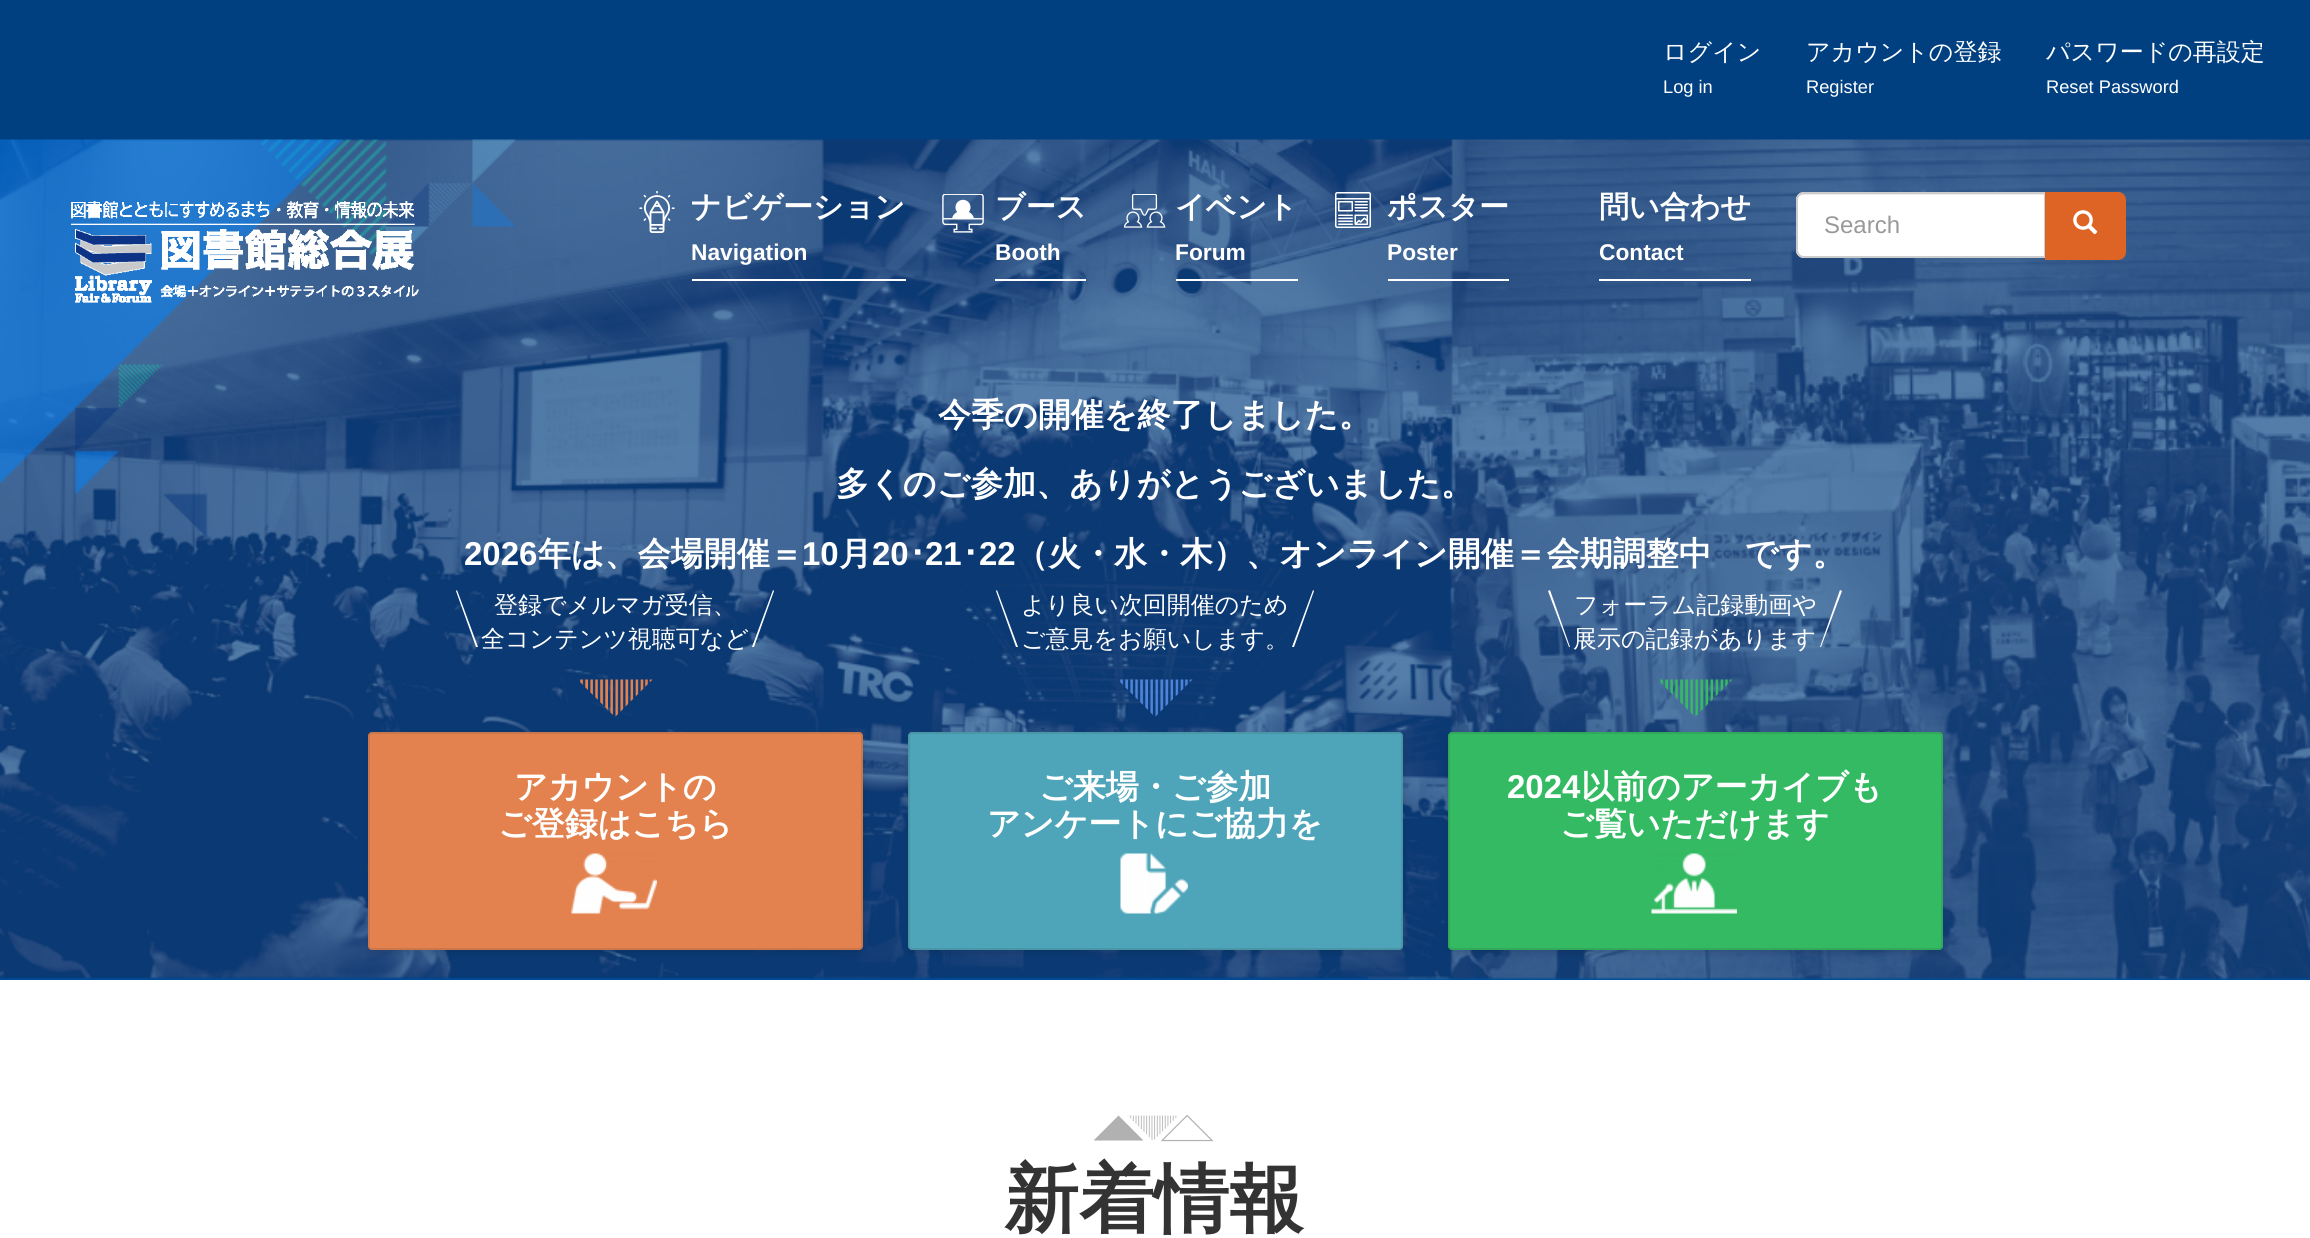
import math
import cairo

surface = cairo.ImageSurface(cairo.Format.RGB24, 2310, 1238)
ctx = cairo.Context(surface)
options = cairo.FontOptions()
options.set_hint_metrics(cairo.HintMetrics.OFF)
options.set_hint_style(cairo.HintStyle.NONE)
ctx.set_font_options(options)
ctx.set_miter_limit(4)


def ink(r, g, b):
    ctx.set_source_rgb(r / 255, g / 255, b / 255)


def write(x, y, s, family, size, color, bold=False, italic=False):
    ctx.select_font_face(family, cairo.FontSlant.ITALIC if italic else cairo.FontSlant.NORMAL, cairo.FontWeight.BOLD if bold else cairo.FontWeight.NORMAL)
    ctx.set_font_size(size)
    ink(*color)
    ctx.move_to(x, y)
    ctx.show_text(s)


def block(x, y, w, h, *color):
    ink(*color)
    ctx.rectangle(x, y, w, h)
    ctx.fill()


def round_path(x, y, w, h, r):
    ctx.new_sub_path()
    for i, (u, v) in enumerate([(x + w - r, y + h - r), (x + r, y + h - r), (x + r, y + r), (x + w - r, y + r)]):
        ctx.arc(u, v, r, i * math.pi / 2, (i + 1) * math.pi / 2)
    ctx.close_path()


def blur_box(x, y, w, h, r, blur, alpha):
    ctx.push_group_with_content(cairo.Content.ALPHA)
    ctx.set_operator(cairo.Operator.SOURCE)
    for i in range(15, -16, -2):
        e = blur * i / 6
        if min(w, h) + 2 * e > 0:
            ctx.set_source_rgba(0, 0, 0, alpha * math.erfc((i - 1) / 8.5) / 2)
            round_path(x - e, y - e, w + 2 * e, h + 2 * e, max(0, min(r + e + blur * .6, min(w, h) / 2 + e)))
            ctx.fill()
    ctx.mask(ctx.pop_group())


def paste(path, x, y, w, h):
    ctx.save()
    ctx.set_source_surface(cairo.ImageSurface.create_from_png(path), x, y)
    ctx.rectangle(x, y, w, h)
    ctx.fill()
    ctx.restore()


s1 = dict(family="WenQuanYi Zen Hei Medium", size=24, color=(255, 255, 255))
s2 = dict(family="Liberation Sans", size=18.25, color=(255, 255, 255))
s3 = dict(family="WenQuanYi Zen Hei", size=30, color=(255, 255, 255), bold=True)
s4 = dict(family="Liberation Sans", size=22.75, color=(255, 255, 255), bold=True)
s5 = dict(family="Liberation Sans", size=24, color=(153, 153, 153))
s6 = dict(family="WenQuanYi Zen Hei", size=33, color=(255, 255, 255), bold=True)
s7 = dict(family="Liberation Sans", size=33, color=(255, 255, 255), bold=True)
s8 = dict(family="IPAPGothic", size=33, color=(255, 255, 255), bold=True)
s9 = dict(family="WenQuanYi Zen Hei", size=75, color=(51, 51, 51), bold=True)

ink(255, 255, 255)
ctx.paint()
block(0, 0, 2310, 140, 0, 64, 128)
write(1663, 60, "ログイン", **s1)
write(1663, 93, "Log in", **s2)
write(1806, 60, "アカウントの登録", **s1)
write(1806, 93, "Register", **s2)
write(2046, 60, "パスワードの再設定", **s1)
write(2046, 93, "Reset Password", **s2)
block(0, 977, 2310, 3, 0, 77, 153)
paste("pic7.png", 0, 139, 2310, 841)
paste("pic8.png", 0, 139, 516, 398)
paste("pic1.png", 71, 201, 348, 102)
paste("pic2.png", 639, 191, 36, 42)
block(692, 279, 214, 2, 255, 255, 255)
write(691, 217, "ナビゲーション", **s3)
write(691, 260, "Navigation", **s4)
paste("pic3.png", 942, 194, 42, 39)
block(995, 279, 91, 2, 255, 255, 255)
write(995, 217, "ブース", **s3)
write(995, 260, "Booth", **s4)
paste("pic4.png", 1124, 194, 42, 34)
block(1176, 279, 122, 2, 255, 255, 255)
write(1175, 217, "イベント", **s3)
write(1175, 260, "Forum", **s4)
paste("pic5.png", 1335, 192, 36, 36)
block(1388, 279, 121, 2, 255, 255, 255)
write(1387, 217, "ポスター", **s3)
write(1387, 260, "Poster", **s4)
block(1599, 279, 152, 2, 255, 255, 255)
write(1599, 217, "問い合わせ", **s3)
write(1599, 260, "Contact", **s4)
ctx.new_path()
ctx.move_to(1804, 192)
ctx.line_to(2046, 192)
ctx.line_to(2046, 258)
ctx.line_to(1804, 258)
ctx.curve_to(1799.5, 258, 1796, 254.5, 1796, 250)
ctx.line_to(1796, 200)
ctx.curve_to(1796, 195.5, 1799.5, 192, 1804, 192)
ctx.close_path()
ctx.fill()
ink(236, 236, 236)
ctx.new_path()
ctx.move_to(1803, 195)
ctx.line_to(2044, 195)
ctx.line_to(2044, 257)
ctx.line_to(2045, 257)
ctx.line_to(2045, 194)
ctx.line_to(1803, 194)
ctx.curve_to(1799, 194, 1797, 197, 1797, 201)
ctx.curve_to(1797, 198, 1800, 195, 1803, 195)
ctx.close_path()
ctx.fill()
ctx.new_path()
ctx.move_to(1804, 193)
ctx.line_to(2045, 193)
ctx.line_to(2045, 257)
ctx.line_to(1804, 257)
ctx.curve_to(1800, 257, 1797, 254, 1797, 250)
ctx.line_to(1797, 200)
ctx.curve_to(1797, 196, 1800, 193, 1804, 193)
ctx.close_path()
ink(204, 204, 204)
ctx.stroke()
write(1824, 233, "Search", **s5)
ink(222, 100, 37)
ctx.new_path()
ctx.move_to(2046, 193)
ctx.line_to(2118, 193)
ctx.curve_to(2122, 193, 2125, 196, 2125, 200)
ctx.line_to(2125, 252)
ctx.curve_to(2125, 256, 2122, 259, 2118, 259)
ctx.line_to(2046, 259)
ctx.close_path()
ctx.fill_preserve()
ctx.stroke()
paste("pic6.png", 2073, 210, 25, 25)
write(938, 426, "今季の開催を終了しました。", **s6)
write(836, 495, "多くのご参加、ありがとうございました。", **s6)
write(464, 565, "2026", **s7)
write(538, 565, "年は、会場開催＝", **s6)
write(802, 565, "10", **s7)
write(839, 565, "月", **s6)
write(872, 565, "20", **s7)
write(909, 565, "･", **s8)
write(925, 565, "21", **s7)
write(962, 565, "･", **s8)
write(979, 565, "22", **s7)
write(1015, 565, "（火・水・木）、オンライン開催＝会期調整中　です。", **s6)
paste("pic9.png", 577, 679, 76, 38)
ctx.new_path()
ctx.move_to(456, 591)
ctx.line_to(457, 590)
ctx.line_to(478, 647)
ctx.line_to(476, 647)
ctx.close_path()
ctx.fill()
write(494, 613, "登録でメルマガ受信、", **s1)
ctx.new_path()
ctx.move_to(773, 590)
ctx.line_to(774, 591)
ctx.line_to(754, 647)
ctx.line_to(752, 647)
ctx.close_path()
ctx.fill()
write(481, 647, "全コンテンツ視聴可など", **s1)
ink(0, 0, 0)
blur_box(368, 735, 495, 218, 4, 3, 0.1)
ink(227, 130, 78)
round_path(368, 732, 495, 218, 4)
ctx.fill()
round_path(369, 733, 493, 216, 3)
ctx.set_source_rgba(0.133, 0.133, 0.133, 0.12)
ctx.stroke()
write(514, 798, "アカウントの", **s6)
write(498, 835, "ご登録はこちら", **s6)
paste("pic10.png", 571, 853, 86, 61)
paste("pic11.png", 1120, 679, 73, 38)
ctx.new_path()
ctx.move_to(996, 591)
ctx.line_to(997, 590)
ctx.line_to(1018, 647)
ctx.line_to(1016, 647)
ctx.close_path()
ctx.fill()
write(1021, 613, "より良い次回開催のため", **s1)
ctx.new_path()
ctx.move_to(1313, 590)
ctx.line_to(1314, 591)
ctx.line_to(1294, 647)
ctx.line_to(1292, 647)
ctx.close_path()
ctx.fill()
write(1021, 647, "ご意見をお願いします。", **s1)
ink(0, 0, 0)
blur_box(908, 735, 495, 218, 4, 3, 0.1)
ink(78, 165, 185)
round_path(908, 732, 495, 218, 4)
ctx.fill()
round_path(909, 733, 493, 216, 3)
ctx.set_source_rgba(0.133, 0.133, 0.133, 0.12)
ctx.stroke()
write(1039, 798, "ご来場・ご参加", **s6)
write(987, 835, "アンケートにご協力を", **s6)
paste("pic12.png", 1120, 853, 68, 61)
paste("pic13.png", 1660, 679, 73, 38)
ctx.new_path()
ctx.move_to(1548, 591)
ctx.line_to(1550, 590)
ctx.line_to(1570, 647)
ctx.line_to(1569, 647)
ctx.close_path()
ctx.fill()
write(1574, 613, "フォーラム記録動画や", **s1)
ctx.new_path()
ctx.move_to(1840, 590)
ctx.line_to(1842, 591)
ctx.line_to(1821, 647)
ctx.line_to(1820, 647)
ctx.close_path()
ctx.fill()
write(1573, 647, "展示の記録があります", **s1)
ink(0, 0, 0)
blur_box(1448, 735, 495, 218, 4, 3, 0.1)
ink(52, 186, 99)
round_path(1448, 732, 495, 218, 4)
ctx.fill()
round_path(1449, 733, 493, 216, 3)
ctx.set_source_rgba(0.133, 0.133, 0.133, 0.12)
ctx.stroke()
write(1507, 798, "2024", **s7)
write(1581, 798, "以前のアーカイブも", **s6)
write(1560, 835, "ご覧いただけます", **s6)
paste("pic14.png", 1651, 853, 86, 61)
paste("pic15.png", 1094, 1115, 120, 27)
write(1004, 1225, "新着情報", **s9)
surface.write_to_png("screenshot.png")
